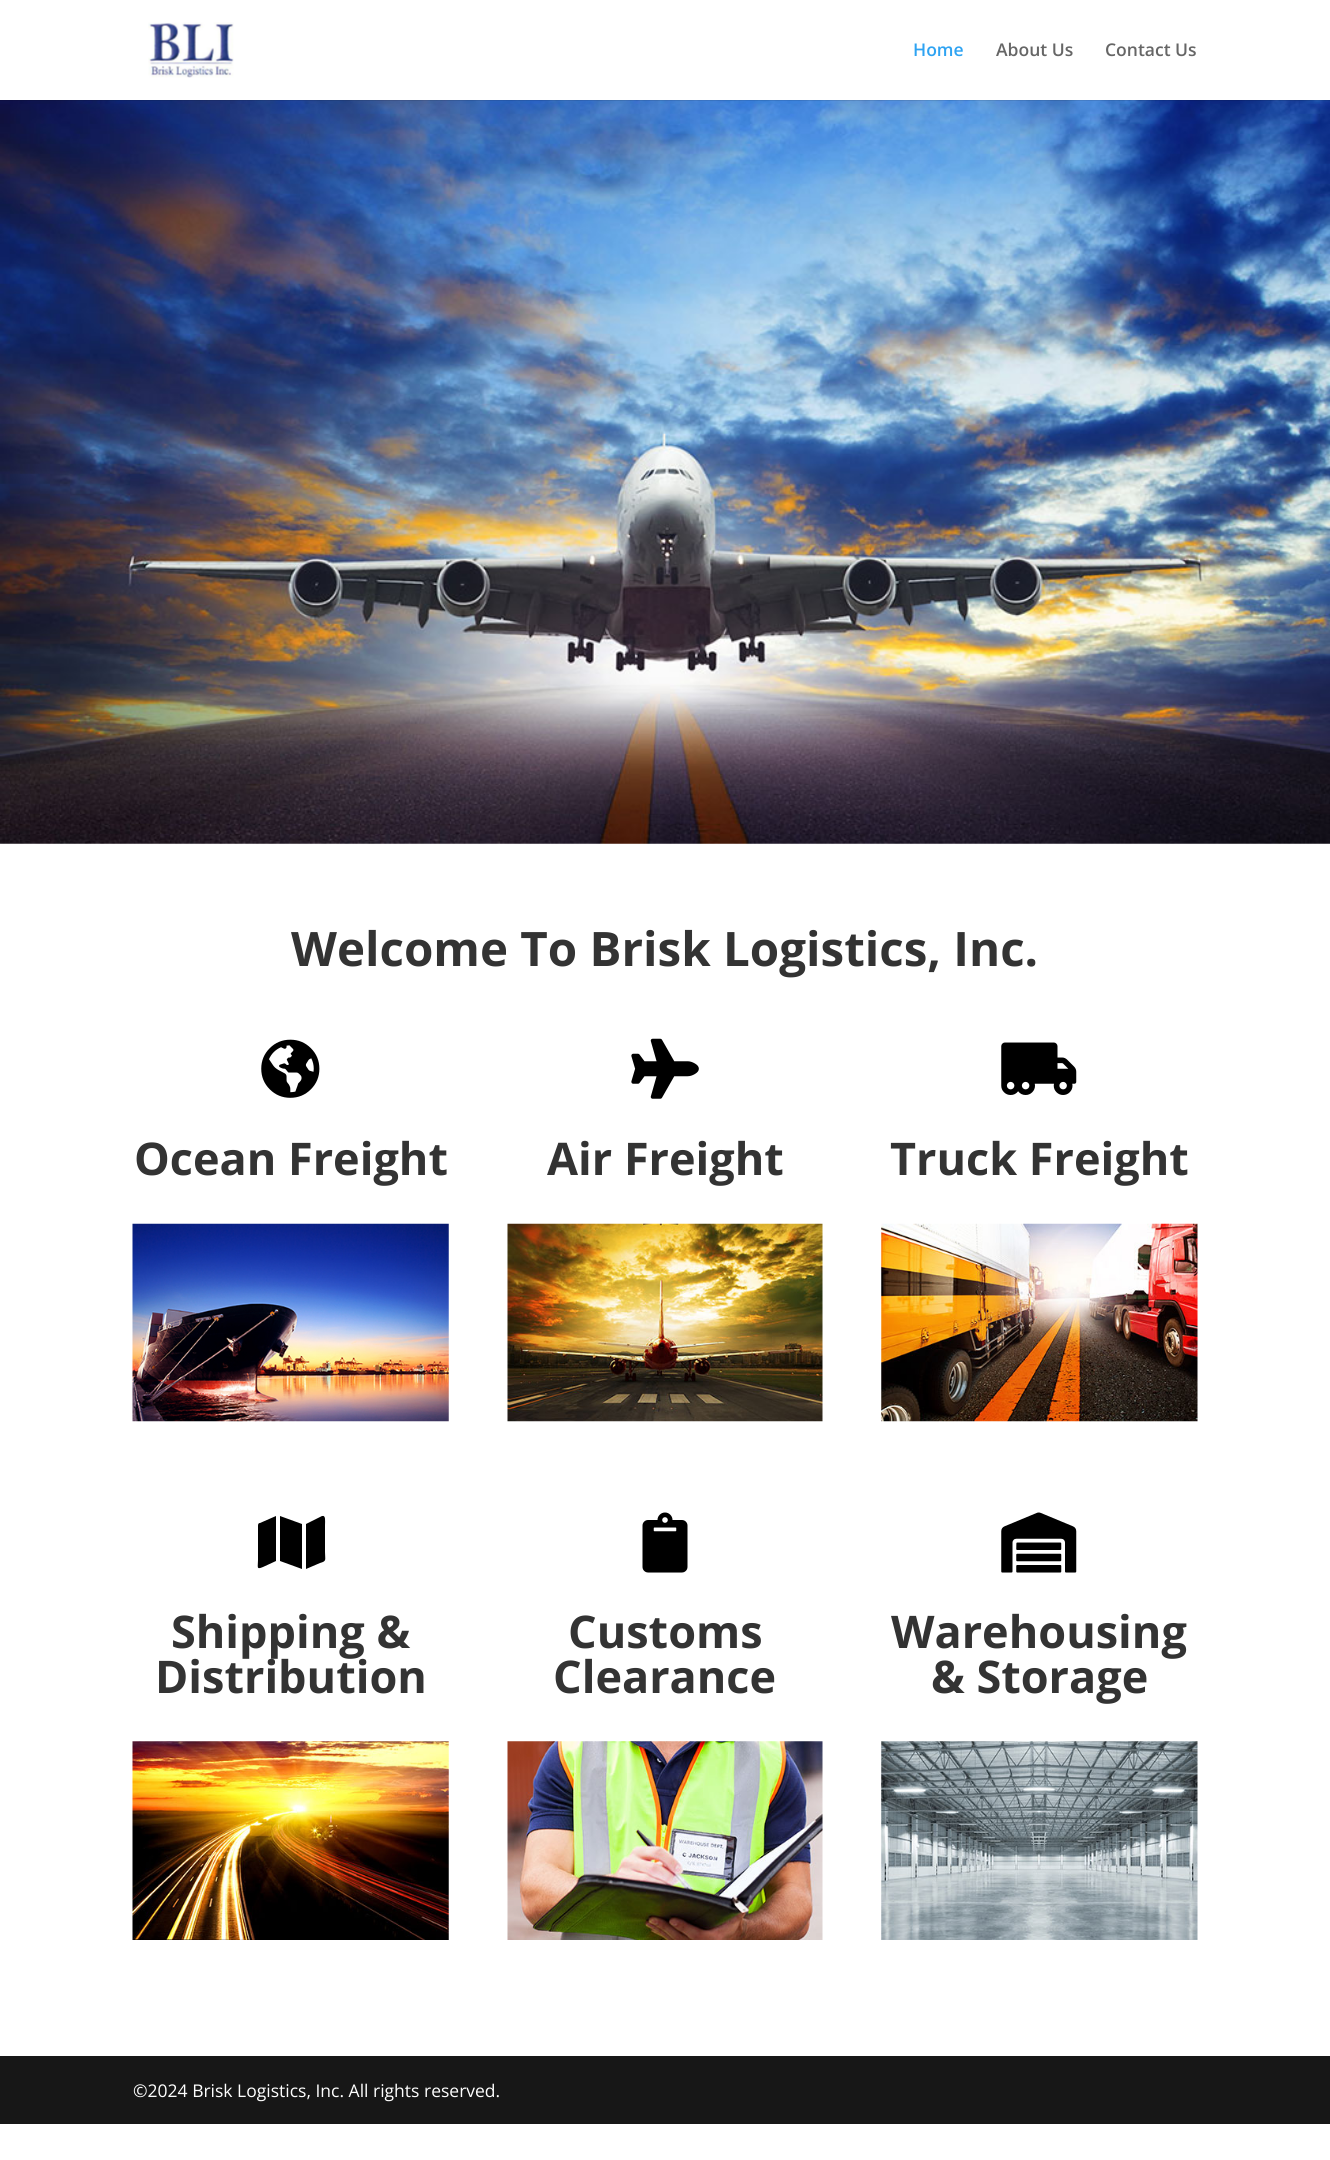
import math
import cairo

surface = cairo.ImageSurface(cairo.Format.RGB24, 1330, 2160)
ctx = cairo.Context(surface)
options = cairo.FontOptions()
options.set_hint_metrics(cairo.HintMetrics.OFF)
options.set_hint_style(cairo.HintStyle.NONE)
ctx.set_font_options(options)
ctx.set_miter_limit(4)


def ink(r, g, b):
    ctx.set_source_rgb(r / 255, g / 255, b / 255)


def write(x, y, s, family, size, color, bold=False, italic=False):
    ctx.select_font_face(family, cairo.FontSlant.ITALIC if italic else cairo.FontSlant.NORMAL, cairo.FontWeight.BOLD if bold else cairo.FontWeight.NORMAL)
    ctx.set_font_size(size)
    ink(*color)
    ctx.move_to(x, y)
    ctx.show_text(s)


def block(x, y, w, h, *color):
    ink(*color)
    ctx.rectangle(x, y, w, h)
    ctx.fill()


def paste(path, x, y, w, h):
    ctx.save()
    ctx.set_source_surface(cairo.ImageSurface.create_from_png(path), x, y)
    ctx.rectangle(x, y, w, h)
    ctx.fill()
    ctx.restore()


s1 = dict(family="Open Sans SemiBold", size=17.5, color=(46, 163, 242))
s2 = dict(family="Open Sans SemiBold", size=17.5, color=(102, 102, 102))
s3 = dict(family="Open Sans", size=47.5, color=(51, 51, 51), bold=True)
s4 = dict(family="Open Sans", size=45, color=(51, 51, 51), bold=True)
s5 = dict(family="Open Sans", size=17.5, color=(255, 255, 255))

ink(255, 255, 255)
ctx.paint()
paste("pic2.png", 0, 100, 1330, 744)
ctx.set_source_rgba(0, 0, 0, 0.1)
ctx.rectangle(0, 100, 1330, 1)
ctx.fill()
paste("pic1.png", 148, 22, 86, 56)
write(913, 56, "Home", **s1)
write(996, 56, "About Us", **s2)
write(1105, 56, "Contact Us", **s2)
write(291, 966, "Welcome To Brisk Logistics, Inc.", **s3)
paste("pic3.png", 261, 1039, 59, 59)
write(134, 1175, "Ocean Freight", **s4)
paste("pic4.png", 132, 1223, 317, 199)
paste("pic5.png", 631, 1038, 68, 61)
write(547, 1175, "Air Freight", **s4)
paste("pic6.png", 507, 1223, 316, 199)
paste("pic7.png", 1001, 1042, 76, 53)
write(890, 1175, "Truck Freight", **s4)
paste("pic8.png", 881, 1223, 317, 199)
ink(0, 0, 0)
ctx.new_path()
ctx.move_to(258, 1526)
ctx.curve_to(258, 1525, 258, 1523, 260, 1523)
ctx.line_to(276, 1516)
ctx.line_to(276, 1561)
ctx.line_to(263, 1567)
ctx.curve_to(256, 1570, 258, 1567, 258, 1560)
ctx.close_path()
ctx.move_to(280, 1561)
ctx.line_to(280, 1516)
ctx.line_to(302, 1524)
ctx.line_to(302, 1569)
ctx.close_path()
ctx.move_to(322, 1516)
ctx.curve_to(326, 1515, 325, 1521, 325, 1525)
ctx.line_to(325, 1552)
ctx.curve_to(325, 1560, 327, 1561, 320, 1563)
ctx.line_to(306, 1569)
ctx.line_to(306, 1524)
ctx.close_path()
ctx.fill()
write(171, 1648, "Shipping &", **s4)
write(155, 1693, "Distribution", **s4)
paste("pic9.png", 132, 1741, 317, 199)
paste("pic10.png", 642, 1512, 46, 61)
write(568, 1648, "Customs", **s4)
write(553, 1693, "Clearance", **s4)
paste("pic11.png", 507, 1741, 316, 199)
paste("pic12.png", 1001, 1512, 76, 61)
write(891, 1648, "Warehousing", **s4)
write(931, 1693, "& Storage", **s4)
paste("pic13.png", 881, 1741, 317, 199)
block(0, 2056, 1330, 68, 23, 23, 23)
write(133, 2097, "©2024 Brisk Logistics, Inc. All rights reserved.", **s5)
surface.write_to_png("screenshot.png")
